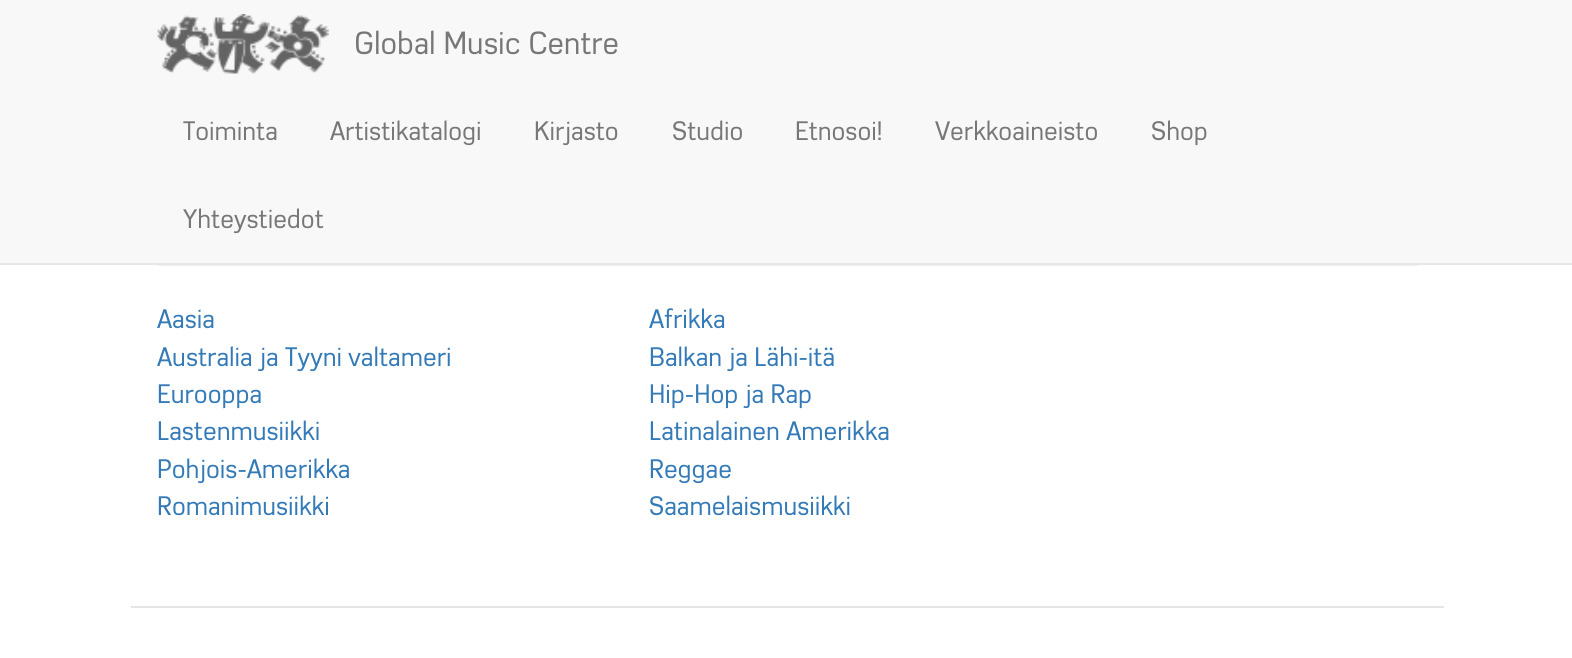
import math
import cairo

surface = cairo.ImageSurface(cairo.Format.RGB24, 1572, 658)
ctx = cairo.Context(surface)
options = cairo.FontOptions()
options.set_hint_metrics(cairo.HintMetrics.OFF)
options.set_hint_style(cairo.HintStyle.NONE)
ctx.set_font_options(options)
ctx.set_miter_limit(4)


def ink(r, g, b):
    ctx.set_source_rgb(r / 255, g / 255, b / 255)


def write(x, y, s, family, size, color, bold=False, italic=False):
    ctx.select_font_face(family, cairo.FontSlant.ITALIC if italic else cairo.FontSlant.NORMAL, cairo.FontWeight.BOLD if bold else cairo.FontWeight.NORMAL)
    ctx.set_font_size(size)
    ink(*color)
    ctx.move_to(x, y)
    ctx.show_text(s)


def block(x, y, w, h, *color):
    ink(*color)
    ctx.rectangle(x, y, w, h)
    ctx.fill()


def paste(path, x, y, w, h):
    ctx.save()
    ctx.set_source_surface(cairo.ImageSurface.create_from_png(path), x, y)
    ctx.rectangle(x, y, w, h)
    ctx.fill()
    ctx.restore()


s1 = dict(family="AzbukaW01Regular", size=31.5, color=(119, 119, 119))
s2 = dict(family="AzbukaW01Regular", size=26.25, color=(119, 119, 119))
s3 = dict(family="AzbukaW01Regular", size=26.25, color=(51, 122, 183))

ink(255, 255, 255)
ctx.paint()
block(0, 0, 1572, 263, 248, 248, 248)
block(0, 263, 1572, 2, 231, 231, 231)
paste("pic1.png", 157, 14, 172, 60)
write(354, 54, "Global Music Centre", **s1)
write(183, 140, "Toiminta", **s2)
write(330, 140, "Artistikatalogi", **s2)
write(534, 140, "Kirjasto", **s2)
write(672, 140, "Studio", **s2)
write(795, 140, "Etnosoi!", **s2)
write(935, 140, "Verkkoaineisto", **s2)
write(1151, 140, "Shop", **s2)
write(183, 228, "Yhteystiedot", **s2)
block(158, 265, 1260, 1, 238, 238, 238)
write(157, 328, "Aasia", **s3)
write(649, 328, "Afrikka", **s3)
write(157, 366, "Australia ja Tyyni valtameri", **s3)
write(649, 366, "Balkan ja Lähi-itä", **s3)
write(157, 403, "Eurooppa", **s3)
write(649, 403, "Hip-Hop ja Rap", **s3)
write(157, 440, "Lastenmusiikki", **s3)
write(649, 440, "Latinalainen Amerikka", **s3)
write(157, 478, "Pohjois-Amerikka", **s3)
write(649, 478, "Reggae", **s3)
write(157, 515, "Romanimusiikki", **s3)
write(649, 515, "Saamelaismusiikki", **s3)
block(131, 606, 1313, 2, 229, 229, 229)
surface.write_to_png("screenshot.png")
